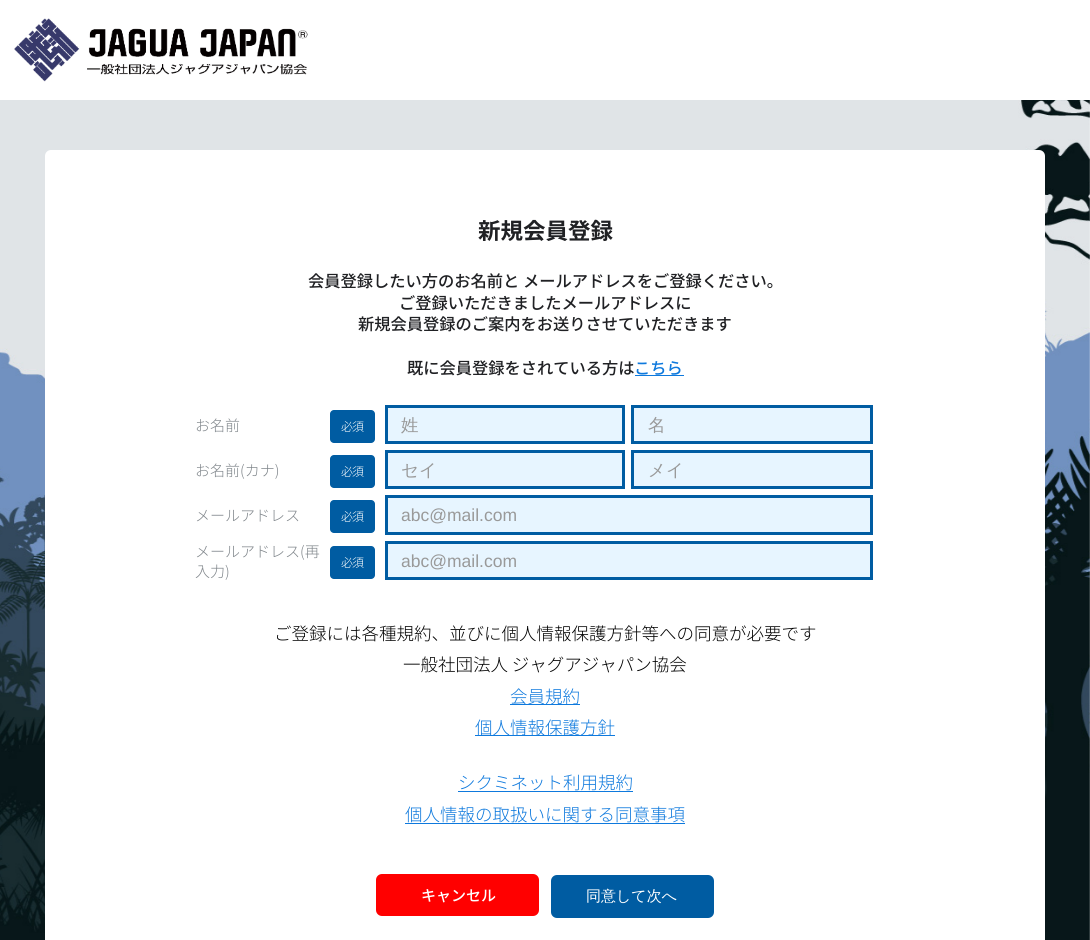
import math
import cairo

surface = cairo.ImageSurface(cairo.Format.RGB24, 1090, 940)
ctx = cairo.Context(surface)
options = cairo.FontOptions()
options.set_hint_metrics(cairo.HintMetrics.OFF)
options.set_hint_style(cairo.HintStyle.NONE)
ctx.set_font_options(options)
ctx.set_miter_limit(4)


def ink(r, g, b):
    ctx.set_source_rgb(r / 255, g / 255, b / 255)


def write(x, y, s, family, size, color, bold=False, italic=False):
    ctx.select_font_face(family, cairo.FontSlant.ITALIC if italic else cairo.FontSlant.NORMAL, cairo.FontWeight.BOLD if bold else cairo.FontWeight.NORMAL)
    ctx.set_font_size(size)
    ink(*color)
    ctx.move_to(x, y)
    ctx.show_text(s)


def write_spaced(x, y, s, letter, word):
    ctx.move_to(x, y)
    for ch in s:
        ctx.show_text(ch)
        ctx.rel_move_to(letter + word * (ch == ' '), 0)


def block(x, y, w, h, *color):
    ink(*color)
    ctx.rectangle(x, y, w, h)
    ctx.fill()


def round_path(x, y, w, h, r):
    ctx.new_sub_path()
    for i, (u, v) in enumerate([(x + w - r, y + h - r), (x + r, y + h - r), (x + r, y + r), (x + w - r, y + r)]):
        ctx.arc(u, v, r, i * math.pi / 2, (i + 1) * math.pi / 2)
    ctx.close_path()


def paste(path, x, y, w, h):
    ctx.save()
    ctx.set_source_surface(cairo.ImageSurface.create_from_png(path), x, y)
    ctx.rectangle(x, y, w, h)
    ctx.fill()
    ctx.restore()


s1 = dict(family="Noto Sans JP", size=22.5, color=(32, 33, 36), bold=True)
s2 = dict(family="Noto Sans JP Medium", size=16.25, color=(32, 33, 36))
s3 = dict(family="Noto Sans JP Medium", size=16.25, color=(14, 121, 221))
s4 = dict(family="Noto Sans JP Light", size=15, color=(128, 134, 139))
s5 = dict(family="WenQuanYi Zen Hei Medium", size=17.5, color=(153, 153, 153))
s6 = dict(family="Liberation Sans", size=17.5, color=(153, 153, 153))
s7 = dict(family="Noto Sans JP Light", size=17.5, color=(0, 0, 0))
s8 = dict(family="Noto Sans JP Light", size=17.5, color=(14, 121, 221))
s9 = dict(family="Noto Sans JP Medium", size=15, color=(255, 255, 255))
s10 = dict(family="WenQuanYi Zen Hei Medium", size=15, color=(255, 255, 255))

ink(255, 255, 255)
ctx.paint()
paste("pic1.png", 0, 100, 1090, 840)
paste("pic2.png", 14, 18, 294, 64)
ink(255, 255, 255)
round_path(45, 150, 1000, 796, 6)
ctx.fill()
write(478, 239, "新規会員登録", **s1)
write(308, 287, "会員登録したい方のお名前と メールアドレスをご登録ください。", **s2)
write(399, 309, "ご登録いただきましたメールアドレスに", **s2)
write(358, 330, "新規会員登録のご案内をお送りさせていただきます", **s2)
write(407, 374, "既に会員登録をされている方は", **s2)
write(634, 374, "こちら", **s3)
block(635, 375, 49, 1, 14, 121, 221)
write(195, 431, "お名前", **s4)
ink(0, 92, 162)
round_path(330, 410, 45, 33, 4)
ctx.fill()
ctx.set_font_size(12)
ink(255, 255, 255)
write_spaced(341, 431, "必須", -1, 0)
ink(231, 245, 255)
ctx.rectangle(386.5, 406.5, 237, 36)
ctx.fill_preserve()
ink(0, 92, 162)
ctx.set_line_width(3)
ctx.stroke()
write(401, 431, "姓", **s5)
ink(231, 245, 255)
ctx.rectangle(632.5, 406.5, 239, 36)
ctx.fill_preserve()
ink(0, 92, 162)
ctx.stroke()
write(648, 431, "名", **s5)
write(195, 476, "お名前(カナ)", **s4)
ink(0, 92, 162)
round_path(330, 455, 45, 33, 4)
ctx.fill()
ctx.set_font_size(12)
ink(255, 255, 255)
write_spaced(341, 476, "必須", -1, 0)
ink(231, 245, 255)
ctx.rectangle(386.5, 451.5, 237, 36)
ctx.fill_preserve()
ink(0, 92, 162)
ctx.stroke()
write(401, 476, "セイ", **s5)
ink(231, 245, 255)
ctx.rectangle(632.5, 451.5, 239, 36)
ctx.fill_preserve()
ink(0, 92, 162)
ctx.stroke()
write(648, 476, "メイ", **s5)
write(195, 521, "メールアドレス", **s4)
ink(0, 92, 162)
round_path(330, 500, 45, 33, 4)
ctx.fill()
ctx.set_font_size(12)
ink(255, 255, 255)
write_spaced(341, 521, "必須", -1, 0)
ink(231, 245, 255)
ctx.rectangle(386.5, 496.5, 485, 37)
ctx.fill_preserve()
ink(0, 92, 162)
ctx.stroke()
write(401, 521, "abc@mail.com", **s6)
write(195, 557, "メールアドレス(再", **s4)
write(195, 577, "入力)", **s4)
ink(0, 92, 162)
round_path(330, 546, 45, 33, 4)
ctx.fill()
ctx.set_font_size(12)
ink(255, 255, 255)
write_spaced(341, 567, "必須", -1, 0)
ink(231, 245, 255)
ctx.rectangle(386.5, 542.5, 485, 36)
ctx.fill_preserve()
ink(0, 92, 162)
ctx.stroke()
write(401, 567, "abc@mail.com", **s6)
write(274, 640, "ご登録には各種規約、並びに個人情報保護方針等への同意が必要です", **s7)
write(403, 671, "一般社団法人 ジャグアジャパン協会", **s7)
block(510, 704, 70, 1, 14, 121, 221)
write(510, 703, "会員規約", **s8)
block(475, 735, 140, 1, 14, 121, 221)
write(475, 734, "個人情報保護方針", **s8)
write(458, 789, "シクミネット利用規約", **s8)
block(458, 791, 175, 1, 14, 121, 221)
write(405, 821, "個人情報の取扱いに関する同意事項", **s8)
block(405, 823, 280, 1, 14, 121, 221)
ink(255, 0, 0)
round_path(376, 874, 163, 42, 6)
ctx.fill()
write(421, 901, "キャンセル", **s9)
ink(0, 92, 162)
round_path(551, 875, 163, 43, 6)
ctx.fill()
write(586, 901, "同意して次へ", **s10)
surface.write_to_png("screenshot.png")
